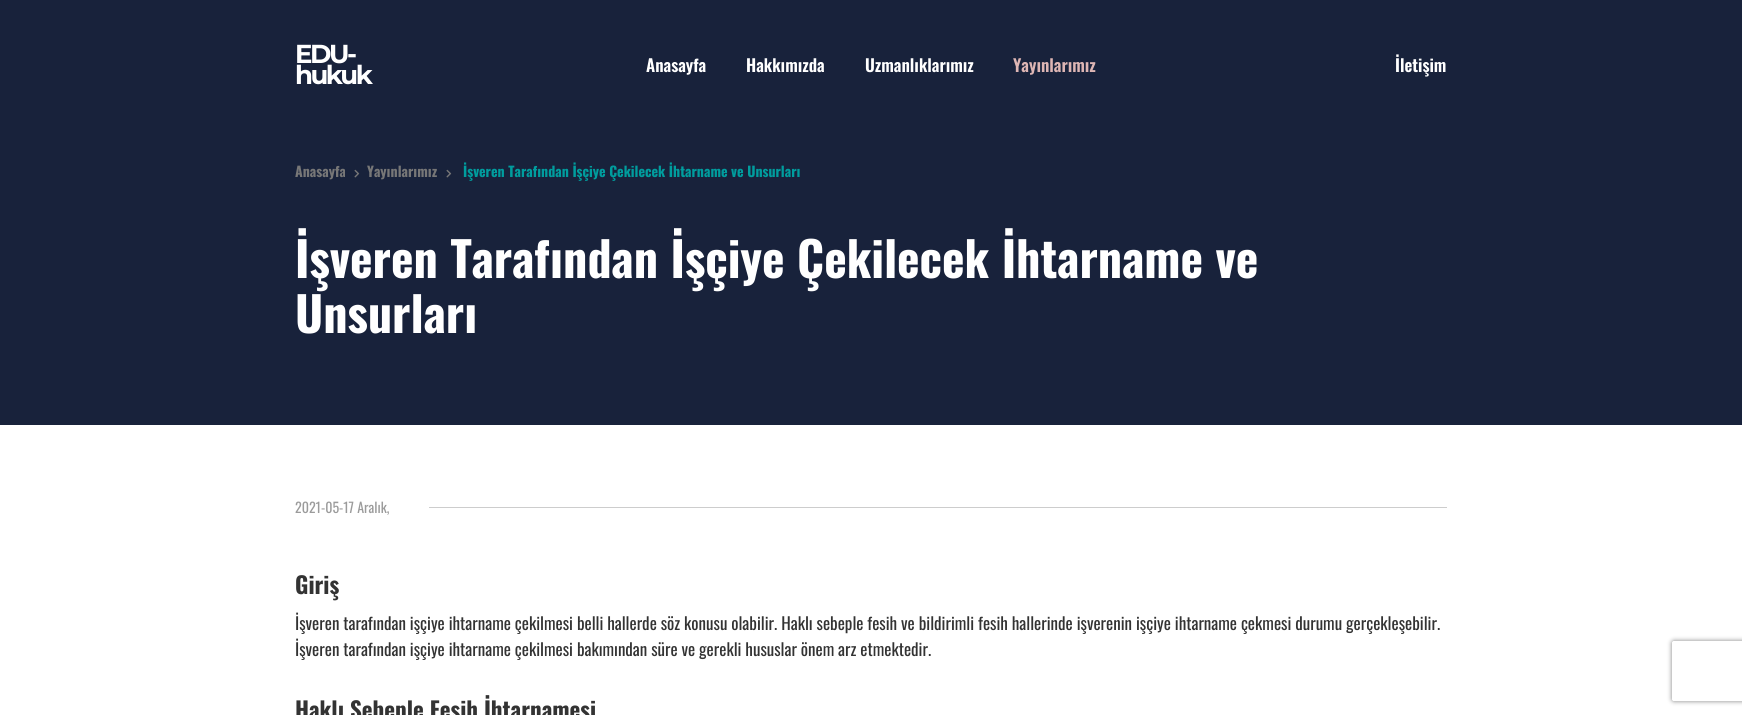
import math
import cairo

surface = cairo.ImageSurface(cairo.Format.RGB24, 1742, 715)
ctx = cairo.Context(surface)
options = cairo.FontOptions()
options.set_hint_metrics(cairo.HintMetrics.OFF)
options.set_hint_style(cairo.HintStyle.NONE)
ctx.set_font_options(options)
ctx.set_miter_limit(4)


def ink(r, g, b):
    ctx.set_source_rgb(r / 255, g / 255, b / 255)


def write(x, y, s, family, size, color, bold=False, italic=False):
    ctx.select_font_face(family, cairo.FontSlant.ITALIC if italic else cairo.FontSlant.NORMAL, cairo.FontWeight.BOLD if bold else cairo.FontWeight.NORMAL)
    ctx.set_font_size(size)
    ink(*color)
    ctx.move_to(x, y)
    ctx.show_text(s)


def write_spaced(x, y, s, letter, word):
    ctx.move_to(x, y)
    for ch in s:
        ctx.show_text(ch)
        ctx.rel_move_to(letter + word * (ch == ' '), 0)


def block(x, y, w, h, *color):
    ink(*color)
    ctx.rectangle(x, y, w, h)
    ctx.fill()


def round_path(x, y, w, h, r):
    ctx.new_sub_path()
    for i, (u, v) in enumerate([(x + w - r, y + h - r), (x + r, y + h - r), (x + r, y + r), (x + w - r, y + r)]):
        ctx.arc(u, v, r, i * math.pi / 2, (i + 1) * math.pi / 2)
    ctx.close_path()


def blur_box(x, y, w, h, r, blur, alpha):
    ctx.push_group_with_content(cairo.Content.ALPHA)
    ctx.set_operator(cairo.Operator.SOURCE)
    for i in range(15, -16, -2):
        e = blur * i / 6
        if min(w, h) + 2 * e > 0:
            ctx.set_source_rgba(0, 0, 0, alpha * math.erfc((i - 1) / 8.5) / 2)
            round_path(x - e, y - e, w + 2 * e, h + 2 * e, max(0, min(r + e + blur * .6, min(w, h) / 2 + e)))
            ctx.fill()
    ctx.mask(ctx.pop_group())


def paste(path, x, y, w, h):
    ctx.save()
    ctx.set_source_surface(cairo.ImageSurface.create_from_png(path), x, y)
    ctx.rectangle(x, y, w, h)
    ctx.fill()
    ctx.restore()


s1 = dict(family="Oswald SemiBold", size=17, color=(255, 255, 255))
s2 = dict(family="Oswald SemiBold", size=17, color=(222, 182, 180))
s3 = dict(family="Oswald", size=14, color=(119, 119, 119), bold=True)
s4 = dict(family="Oswald", size=14, color=(0, 157, 158), bold=True)
s5 = dict(family="Oswald", size=48, color=(255, 255, 255), bold=True)
s6 = dict(family="Oswald", size=14, color=(155, 155, 155))
s7 = dict(family="Oswald", size=23, color=(51, 51, 51), bold=True)
s8 = dict(family="Oswald", size=17, color=(51, 51, 51))

ink(255, 255, 255)
ctx.paint()
block(0, 0, 1742, 425, 24, 34, 59)
ctx.select_font_face("Montserrat", cairo.FontSlant.NORMAL, cairo.FontWeight.BOLD)
ctx.set_font_size(26)
ink(255, 255, 255)
write_spaced(295, 63, "EDU-", -2.5, 0)
write_spaced(295, 84, "hukuk", -2.5, 0)
write(646, 72, "Anasayfa", **s1)
write(746, 72, "Hakkımızda", **s1)
write(865, 72, "Uzmanlıklarımız", **s1)
write(1013, 72, "Yayınlarımız", **s2)
write(1395, 72, "İletişim", **s1)
write(295, 177, "Anasayfa", **s3)
paste("pic1.png", 354, 169, 6, 9)
write(367, 177, "Yayınlarımız", **s3)
paste("pic1.png", 446, 169, 6, 9)
write(463, 177, "İşveren Tarafından İşçiye Çekilecek İhtarname ve Unsurları", **s4)
ctx.set_font_size(48)
ink(255, 255, 255)
write_spaced(295, 278, "İşveren Tarafından İşçiye Çekilecek İhtarname ve", 0, 0.25)
write(295, 333, "Unsurları", **s5)
write(295, 513, "2021-05-17 Aralık,", **s6)
block(429, 507, 1018, 1, 205, 205, 205)
write(295, 594, "Giriş", **s7)
write(295, 630, "İşveren tarafından işçiye ihtarname çekilmesi belli hallerde söz konusu olabilir. Haklı sebeple fesih ve bildirimli fesih hallerinde işverenin işçiye ihtarname çekmesi durumu gerçekleşebilir.", **s8)
write(295, 656, "İşveren tarafından işçiye ihtarname çekilmesi bakımından süre ve gerekli hususlar önem arz etmektedir.", **s8)
write(295, 719, "Haklı Sebeple Fesih İhtarnamesi", **s7)
ctx.save()
ctx.set_fill_rule(cairo.FillRule.EVEN_ODD)
ctx.new_path()
ctx.move_to(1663, 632)
ctx.line_to(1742, 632)
ctx.line_to(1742, 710)
ctx.line_to(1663, 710)
ctx.close_path()
ctx.move_to(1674, 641)
ctx.line_to(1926, 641)
ctx.curve_to(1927, 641, 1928, 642, 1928, 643)
ctx.line_to(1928, 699)
ctx.curve_to(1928, 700, 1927, 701, 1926, 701)
ctx.line_to(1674, 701)
ctx.curve_to(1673, 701, 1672, 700, 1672, 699)
ctx.line_to(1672, 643)
ctx.curve_to(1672, 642, 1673, 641, 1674, 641)
ctx.close_path()
ctx.clip()
ink(128, 128, 128)
blur_box(1672, 641, 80, 60, 2, 2.5, 1)
ctx.restore()
surface.write_to_png("screenshot.png")
